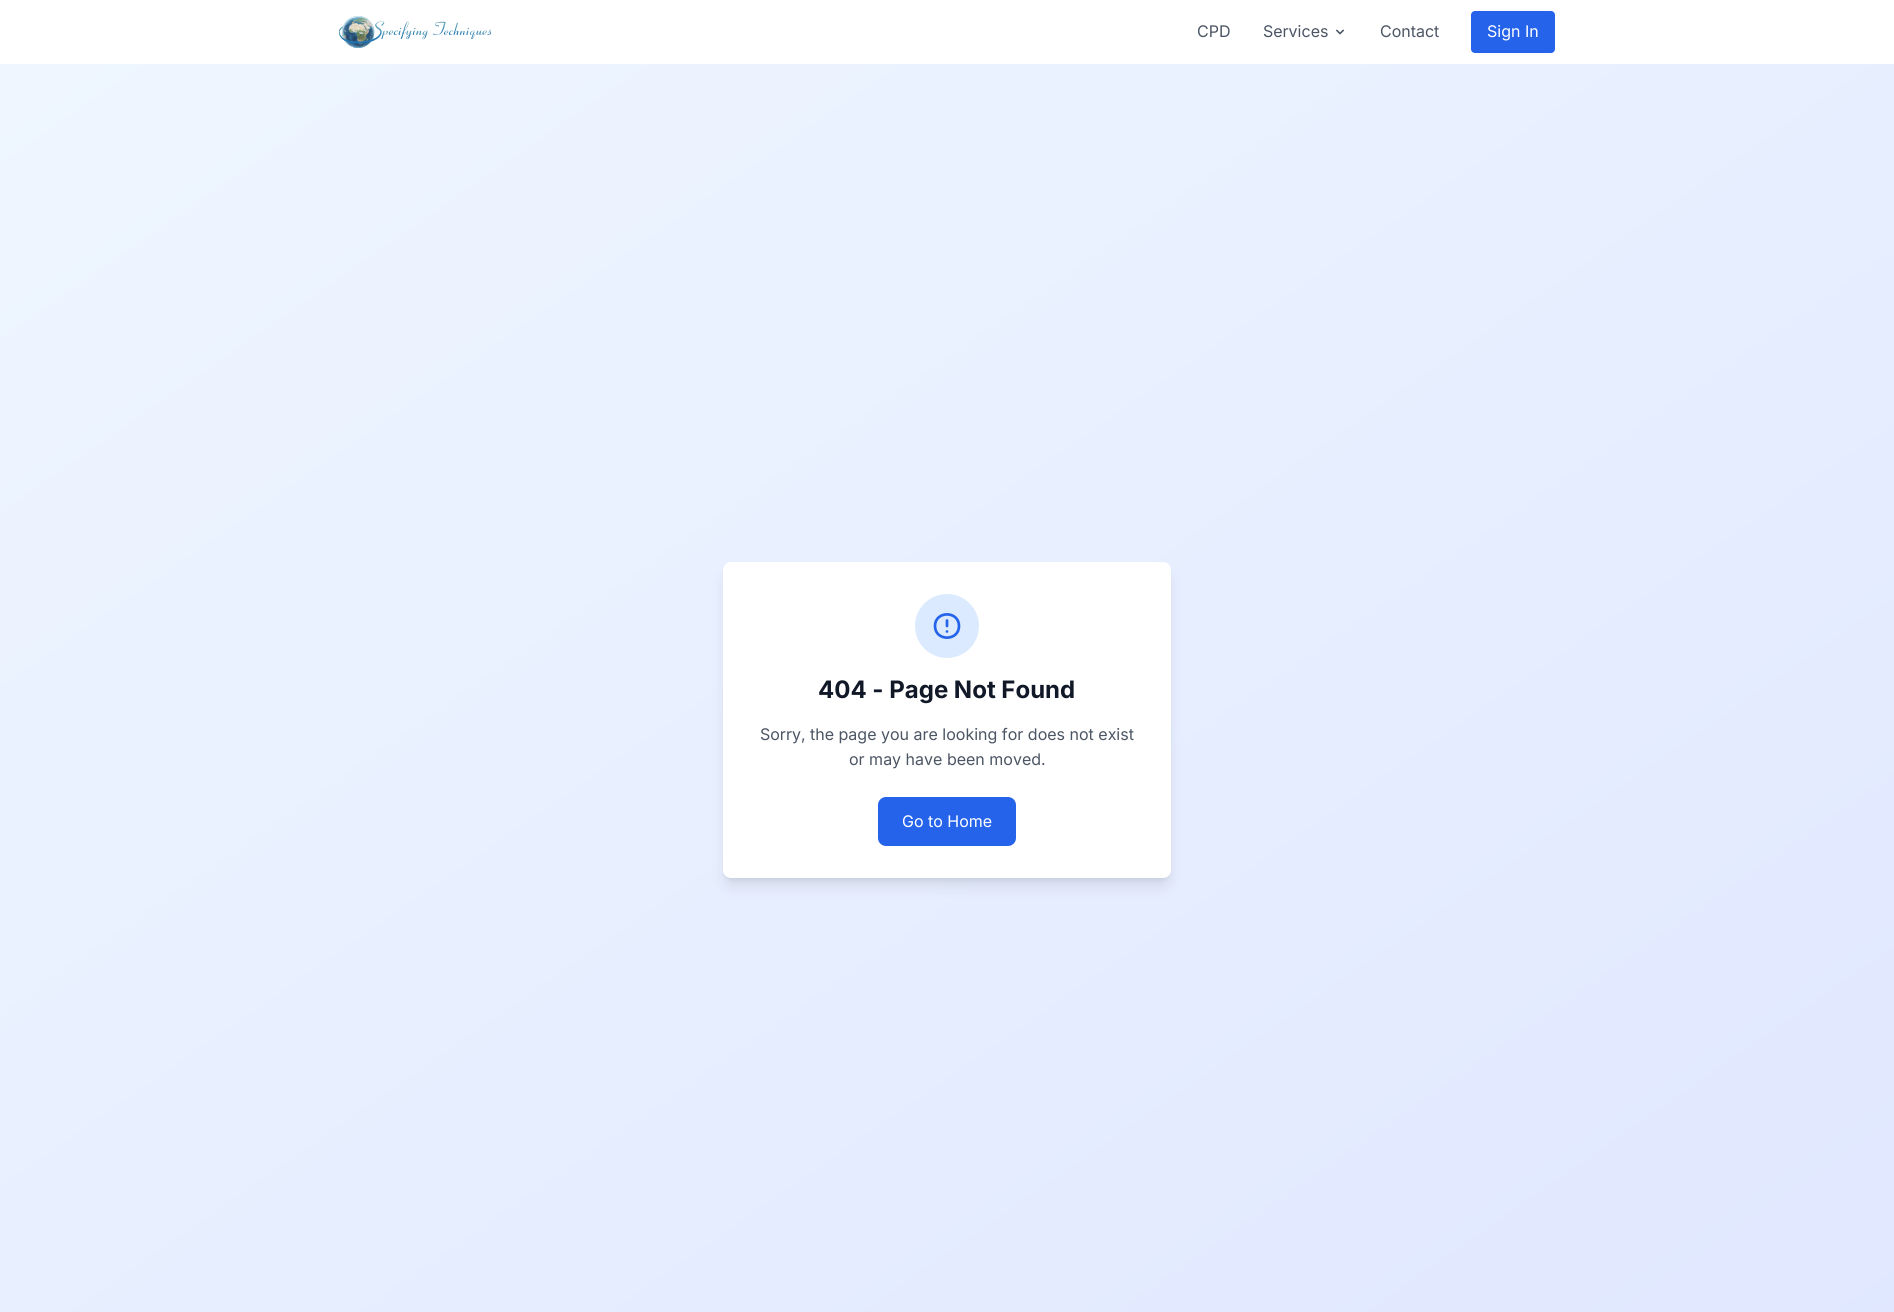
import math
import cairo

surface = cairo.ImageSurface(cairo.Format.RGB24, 1894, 1312)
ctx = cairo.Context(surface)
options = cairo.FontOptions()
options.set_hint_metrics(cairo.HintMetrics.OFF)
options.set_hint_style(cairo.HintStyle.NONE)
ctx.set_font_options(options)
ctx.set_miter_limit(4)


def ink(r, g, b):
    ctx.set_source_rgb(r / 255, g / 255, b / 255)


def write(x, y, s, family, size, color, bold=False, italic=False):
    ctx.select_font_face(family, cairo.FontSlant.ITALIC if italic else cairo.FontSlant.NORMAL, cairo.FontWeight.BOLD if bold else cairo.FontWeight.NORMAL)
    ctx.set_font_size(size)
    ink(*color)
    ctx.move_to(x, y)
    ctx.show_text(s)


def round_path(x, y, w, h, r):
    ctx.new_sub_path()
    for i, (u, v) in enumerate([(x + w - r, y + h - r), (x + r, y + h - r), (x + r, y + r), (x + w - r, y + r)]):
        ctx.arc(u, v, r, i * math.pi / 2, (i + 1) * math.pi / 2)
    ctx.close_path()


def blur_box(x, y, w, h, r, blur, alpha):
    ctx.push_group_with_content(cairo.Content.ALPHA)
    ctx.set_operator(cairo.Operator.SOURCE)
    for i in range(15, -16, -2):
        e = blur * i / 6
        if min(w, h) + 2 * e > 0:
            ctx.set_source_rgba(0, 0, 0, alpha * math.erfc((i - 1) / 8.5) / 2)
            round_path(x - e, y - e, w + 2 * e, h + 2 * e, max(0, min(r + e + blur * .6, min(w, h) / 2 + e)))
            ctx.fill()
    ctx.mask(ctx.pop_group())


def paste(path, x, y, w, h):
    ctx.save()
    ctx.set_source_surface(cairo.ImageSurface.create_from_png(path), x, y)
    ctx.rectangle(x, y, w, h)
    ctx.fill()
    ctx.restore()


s1 = dict(family="Inter", size=16, color=(75, 85, 99))
s2 = dict(family="Inter", size=16, color=(255, 255, 255))
s3 = dict(family="Inter", size=24, color=(17, 24, 39), bold=True)

ink(255, 255, 255)
ctx.paint()
paste("pic1.png", 339, 16, 152, 32)
write(1197, 37, "CPD", **s1)
write(1263, 37, "Services", **s1)
paste("pic2.png", 1336, 29, 8, 6)
write(1380, 37, "Contact", **s1)
ink(37, 99, 235)
round_path(1471, 11, 84, 42, 4)
ctx.fill()
write(1487, 37, "Sign In", **s2)
gradient = cairo.LinearGradient(333, -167, 1561, 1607)
gradient.add_color_stop_rgba(0, 0.937, 0.965, 1, 1)
gradient.add_color_stop_rgba(1, 0.878, 0.906, 1, 1)
ctx.set_source(gradient)
ctx.rectangle(0, 64, 1894, 1248)
ctx.fill()
ink(0, 0, 0)
blur_box(727, 570, 440, 308, 4, 3, 0.1)
blur_box(726, 575, 442, 310, 5, 7.5, 0.1)
ink(255, 255, 255)
round_path(723, 562, 448, 316, 8)
ctx.fill()
ink(219, 234, 254)
ctx.arc(947, 626, 32, 0, 2 * math.pi)
ctx.fill()
ctx.new_path()
ctx.move_to(947, 620.5)
ctx.line_to(947, 626)
ctx.move_to(947, 631.5)
ctx.line_to(947, 631.5)
ctx.move_to(959, 626)
ctx.curve_to(959, 641.5, 935, 641.5, 935, 626)
ctx.curve_to(935, 610.5, 959, 610.5, 959, 626)
ctx.close_path()
ink(37, 99, 235)
ctx.set_line_width(2.7)
ctx.set_line_cap(cairo.LineCap.ROUND)
ctx.set_line_join(cairo.LineJoin.ROUND)
ctx.stroke()
write(818, 698, "404 - Page Not Found", **s3)
write(760, 740, "Sorry, the page you are looking for does not exist", **s1)
write(849, 765, "or may have been moved.", **s1)
ink(37, 99, 235)
round_path(878, 797, 138, 49, 8)
ctx.fill()
write(902, 827, "Go to Home", **s2)
surface.write_to_png("screenshot.png")
